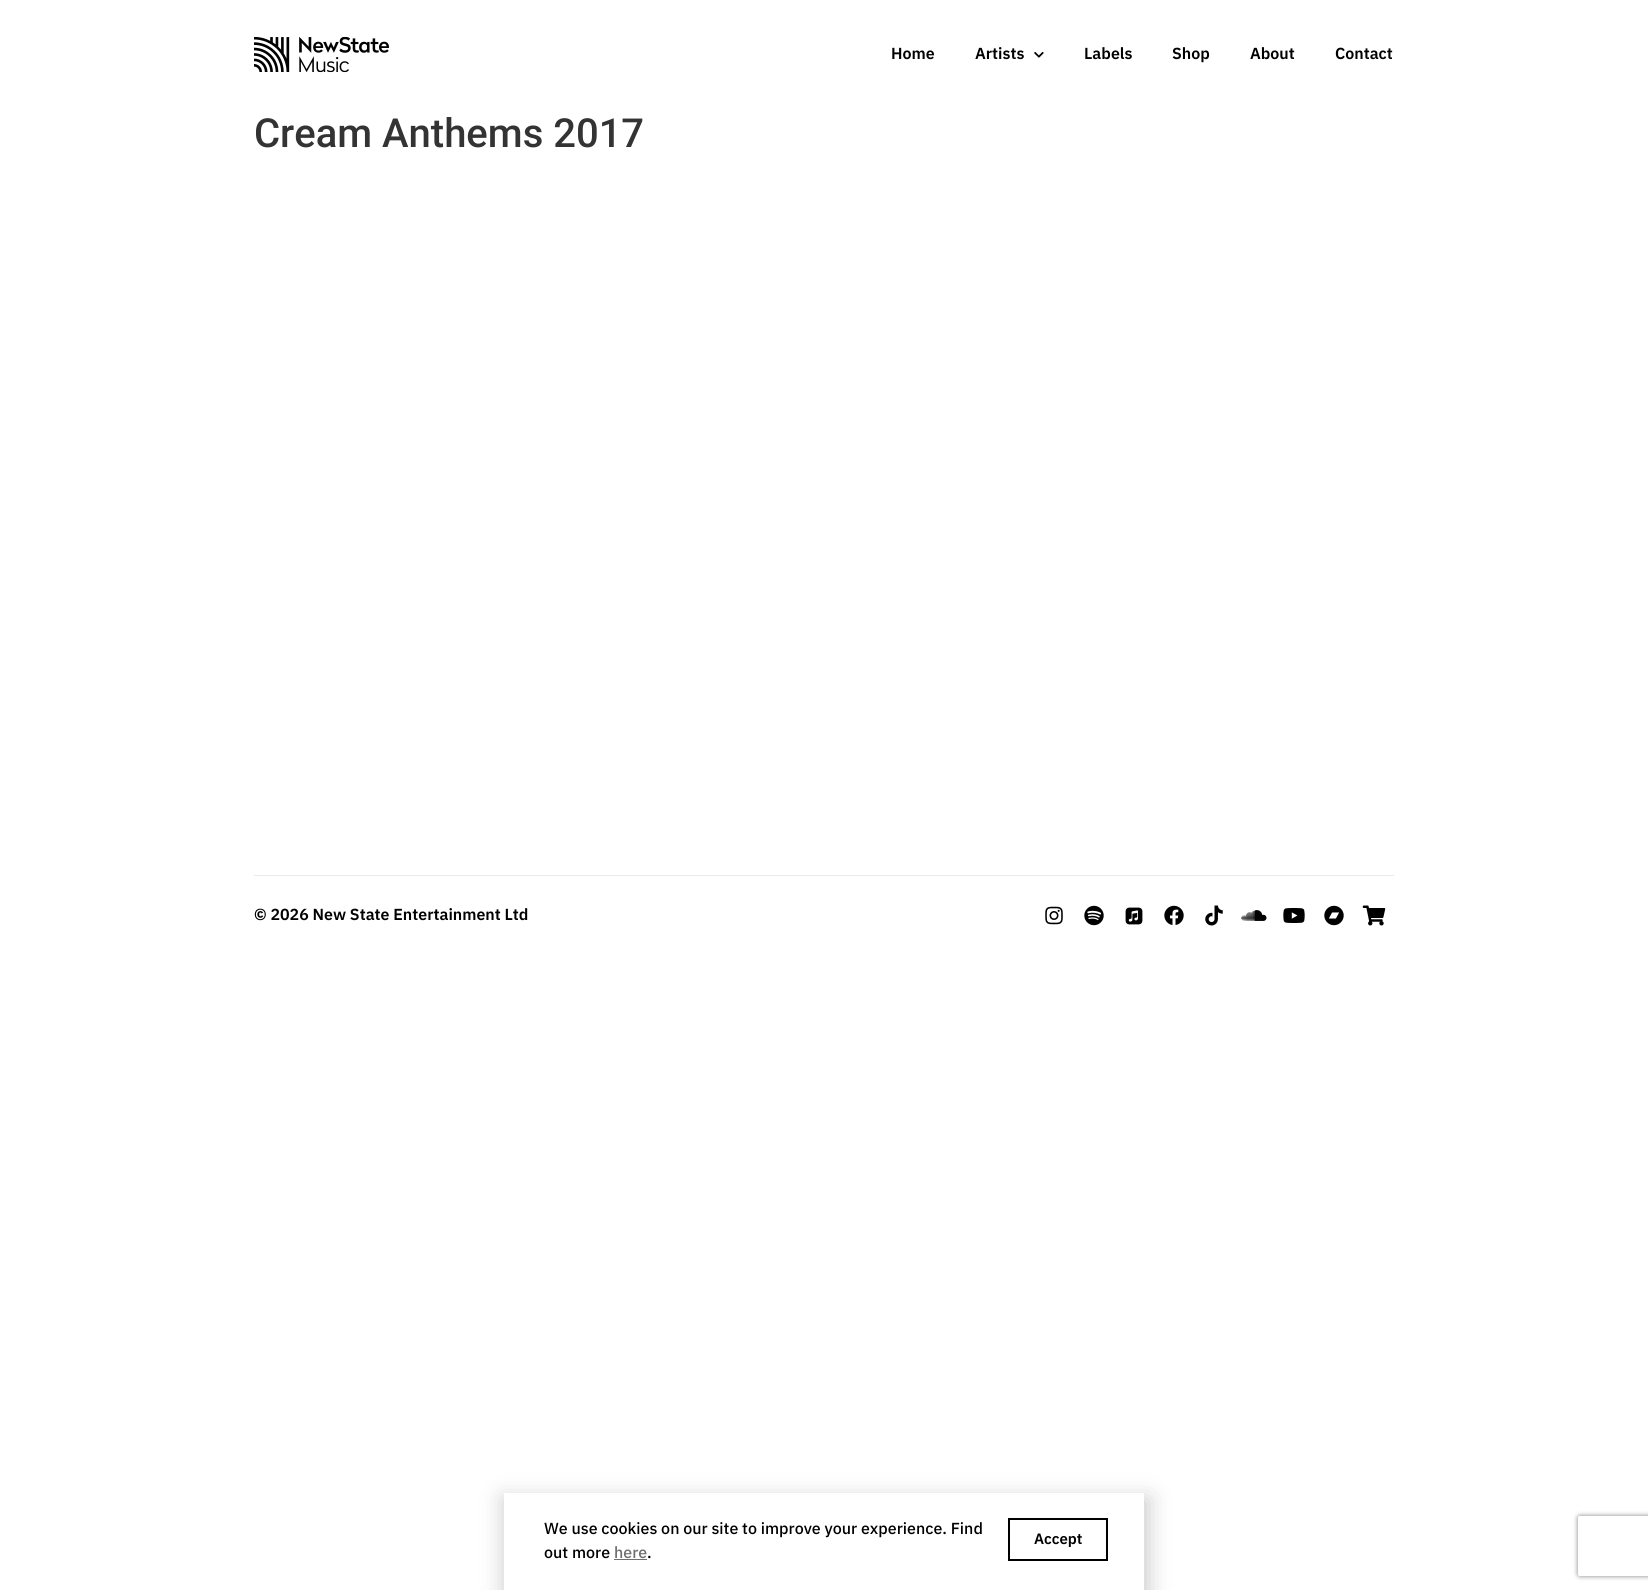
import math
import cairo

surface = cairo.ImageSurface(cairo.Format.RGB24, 1648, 1590)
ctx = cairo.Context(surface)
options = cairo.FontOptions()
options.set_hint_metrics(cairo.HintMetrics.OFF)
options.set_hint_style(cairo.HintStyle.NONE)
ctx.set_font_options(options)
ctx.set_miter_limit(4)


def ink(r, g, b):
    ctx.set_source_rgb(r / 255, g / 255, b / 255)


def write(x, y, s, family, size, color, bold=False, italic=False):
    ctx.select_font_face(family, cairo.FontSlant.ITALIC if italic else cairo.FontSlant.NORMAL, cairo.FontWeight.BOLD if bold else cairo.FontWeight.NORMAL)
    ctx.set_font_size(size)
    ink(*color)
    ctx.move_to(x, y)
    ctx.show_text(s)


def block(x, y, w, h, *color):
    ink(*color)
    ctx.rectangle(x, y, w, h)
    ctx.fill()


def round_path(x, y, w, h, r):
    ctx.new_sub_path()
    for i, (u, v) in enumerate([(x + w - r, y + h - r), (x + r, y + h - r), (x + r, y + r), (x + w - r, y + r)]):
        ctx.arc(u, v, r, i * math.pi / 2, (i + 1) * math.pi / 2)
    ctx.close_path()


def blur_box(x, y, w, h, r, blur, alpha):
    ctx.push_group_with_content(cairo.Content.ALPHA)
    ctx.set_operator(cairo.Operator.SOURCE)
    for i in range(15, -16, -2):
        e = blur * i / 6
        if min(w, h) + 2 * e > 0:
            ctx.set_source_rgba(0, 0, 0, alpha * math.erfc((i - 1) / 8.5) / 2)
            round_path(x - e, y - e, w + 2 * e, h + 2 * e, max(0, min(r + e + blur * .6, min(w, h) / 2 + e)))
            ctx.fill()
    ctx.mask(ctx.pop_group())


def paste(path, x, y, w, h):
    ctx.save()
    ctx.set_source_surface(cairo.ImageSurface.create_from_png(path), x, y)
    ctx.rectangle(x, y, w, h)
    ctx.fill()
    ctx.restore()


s1 = dict(family="IBM Plex Sans Thai SemiBold", size=16, color=(0, 0, 0))
s2 = dict(family="Roboto Medium", size=40, color=(51, 51, 51))
s3 = dict(family="IBM Plex Sans Thai Medium", size=16, color=(0, 0, 0))
s4 = dict(family="IBM Plex Sans Thai Medium", size=16, color=(111, 111, 111))
s5 = dict(family="IBM Plex Sans Thai SemiBold", size=15, color=(0, 0, 0))

ink(255, 255, 255)
ctx.paint()
paste("pic1.png", 254, 36, 135, 37)
write(891, 59, "Home", **s1)
write(975, 59, "Artists", **s1)
paste("pic2.png", 1034, 52, 10, 6)
write(1084, 59, "Labels", **s1)
write(1172, 59, "Shop", **s1)
write(1250, 59, "About", **s1)
write(1335, 59, "Contact", **s1)
write(254, 147, "Cream Anthems 2017", **s2)
block(254, 875, 1140, 1, 234, 234, 234)
write(254, 920, "© 2026 New State Entertainment Ltd", **s1)
paste("pic3.png", 1045, 906, 18, 19)
paste("pic4.png", 1084, 905, 20, 21)
paste("pic5.png", 1125, 907, 18, 18)
paste("pic6.png", 1164, 905, 20, 20)
paste("pic7.png", 1205, 905, 18, 21)
paste("pic8.png", 1241, 910, 26, 11)
paste("pic9.png", 1283, 908, 22, 15)
paste("pic10.png", 1324, 905, 20, 21)
paste("pic11.png", 1362, 905, 24, 21)
ctx.save()
ctx.set_fill_rule(cairo.FillRule.EVEN_ODD)
ctx.new_path()
ctx.move_to(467, 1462)
ctx.line_to(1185, 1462)
ctx.line_to(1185, 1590)
ctx.line_to(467, 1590)
ctx.close_path()
ctx.move_to(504, 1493)
ctx.line_to(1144, 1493)
ctx.line_to(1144, 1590)
ctx.line_to(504, 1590)
ctx.close_path()
ctx.clip()
ink(0, 0, 0)
blur_box(503, 1498, 646, 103, 0, 11.5, 0.2)
ctx.restore()
write(544, 1534, "We use cookies on our site to improve your experience. Find", **s3)
write(544, 1558, "out more", **s3)
write(614, 1558, "here", **s4)
block(614, 1559, 33, 1, 111, 111, 111)
write(647, 1558, ".", **s3)
ctx.rectangle(1009, 1519, 98, 41)
ctx.stroke()
write(1034, 1544, "Accept", **s5)
ctx.save()
ctx.set_fill_rule(cairo.FillRule.EVEN_ODD)
ctx.new_path()
ctx.move_to(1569, 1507)
ctx.line_to(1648, 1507)
ctx.line_to(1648, 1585)
ctx.line_to(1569, 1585)
ctx.close_path()
ctx.move_to(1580, 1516)
ctx.line_to(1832, 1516)
ctx.curve_to(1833, 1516, 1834, 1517, 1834, 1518)
ctx.line_to(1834, 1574)
ctx.curve_to(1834, 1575, 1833, 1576, 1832, 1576)
ctx.line_to(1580, 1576)
ctx.curve_to(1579, 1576, 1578, 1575, 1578, 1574)
ctx.line_to(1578, 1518)
ctx.curve_to(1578, 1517, 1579, 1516, 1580, 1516)
ctx.close_path()
ctx.clip()
ink(128, 128, 128)
blur_box(1578, 1516, 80, 60, 2, 2.5, 1)
ctx.restore()
surface.write_to_png("screenshot.png")
